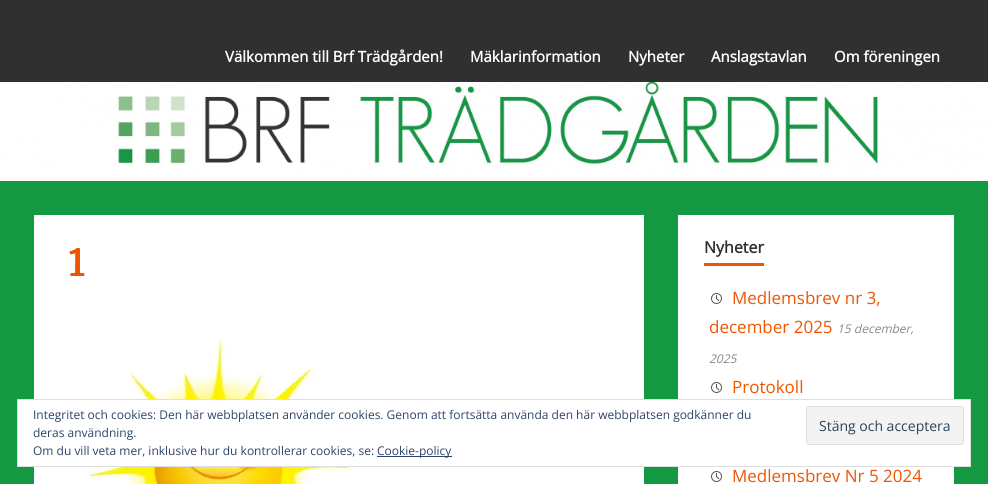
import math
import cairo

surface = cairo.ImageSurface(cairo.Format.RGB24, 988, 484)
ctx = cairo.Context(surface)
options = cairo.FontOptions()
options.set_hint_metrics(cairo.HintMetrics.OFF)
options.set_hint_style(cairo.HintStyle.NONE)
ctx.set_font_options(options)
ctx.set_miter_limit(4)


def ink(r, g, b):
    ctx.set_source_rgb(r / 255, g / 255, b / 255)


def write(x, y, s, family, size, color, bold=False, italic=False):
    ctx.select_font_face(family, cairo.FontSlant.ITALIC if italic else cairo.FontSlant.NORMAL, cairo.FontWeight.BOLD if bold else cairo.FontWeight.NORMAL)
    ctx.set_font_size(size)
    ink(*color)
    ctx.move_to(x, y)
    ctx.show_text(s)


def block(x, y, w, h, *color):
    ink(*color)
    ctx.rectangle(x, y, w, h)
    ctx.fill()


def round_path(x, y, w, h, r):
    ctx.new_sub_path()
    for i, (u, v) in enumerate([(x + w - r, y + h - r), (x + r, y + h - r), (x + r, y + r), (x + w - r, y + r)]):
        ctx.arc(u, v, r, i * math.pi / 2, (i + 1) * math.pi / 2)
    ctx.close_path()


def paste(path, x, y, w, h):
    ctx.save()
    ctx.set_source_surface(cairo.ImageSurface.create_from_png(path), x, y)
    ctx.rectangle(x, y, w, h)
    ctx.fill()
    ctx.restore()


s1 = dict(family="Open Sans", size=15, color=(255, 255, 255), bold=True)
s2 = dict(family="Merriweather", size=36, color=(238, 85, 0), bold=True)
s3 = dict(family="Open Sans", size=16, color=(48, 48, 48), bold=True)
s4 = dict(family="Open Sans", size=17, color=(238, 85, 0))
s5 = dict(family="Open Sans", size=12, color=(136, 136, 136), italic=True)
s6 = dict(family="Open Sans", size=12, color=(46, 68, 103))
s7 = dict(family="Open Sans", size=14, color=(46, 68, 83))

ink(20, 152, 66)
ctx.paint()
block(0, 0, 988, 82, 48, 48, 48)
write(225, 62, "Välkommen till Brf Trädgården!", **s1)
write(470, 62, "Mäklarinformation", **s1)
write(628, 62, "Nyheter", **s1)
write(711, 62, "Anslagstavlan", **s1)
write(834, 62, "Om föreningen", **s1)
paste("pic1.png", 0, 82, 988, 99)
block(34, 215, 610, 269, 255, 255, 255)
write(68, 276, "1", **s2)
paste("pic2.png", 84, 338, 266, 146)
block(678, 215, 276, 269, 255, 255, 255)
block(704, 263, 60, 3, 238, 85, 0)
write(704, 253, "Nyheter", **s3)
paste("pic3.png", 711, 293, 11, 11)
write(732, 304, "Medlemsbrev nr 3,", **s4)
write(709, 333, "december 2025", **s4)
write(837, 333, "15 december,", **s5)
write(709, 363, "2025", **s5)
paste("pic3.png", 711, 382, 11, 11)
write(732, 393, "Protokoll", **s4)
paste("pic3.png", 711, 471, 11, 11)
write(732, 482, "Medlemsbrev Nr 5 2024", **s4)
ink(255, 255, 255)
ctx.rectangle(17.5, 399.5, 953, 67)
ctx.fill_preserve()
ink(222, 222, 222)
ctx.set_line_width(1)
ctx.stroke()
write(33, 419, "Integritet och cookies: Den här webbplatsen använder cookies. Genom att fortsätta använda den här webbplatsen godkänner du", **s6)
write(33, 437, "deras användning.", **s6)
ink(243, 243, 243)
round_path(806.5, 406.5, 157, 38, 2.5)
ctx.fill_preserve()
ink(222, 222, 222)
ctx.stroke()
write(819, 431, "Stäng och acceptera", **s7)
write(33, 455, "Om du vill veta mer, inklusive hur du kontrollerar cookies, se:", **s6)
block(377, 456, 75, 1, 46, 68, 103)
write(377, 455, "Cookie-policy", **s6)
surface.write_to_png("screenshot.png")
